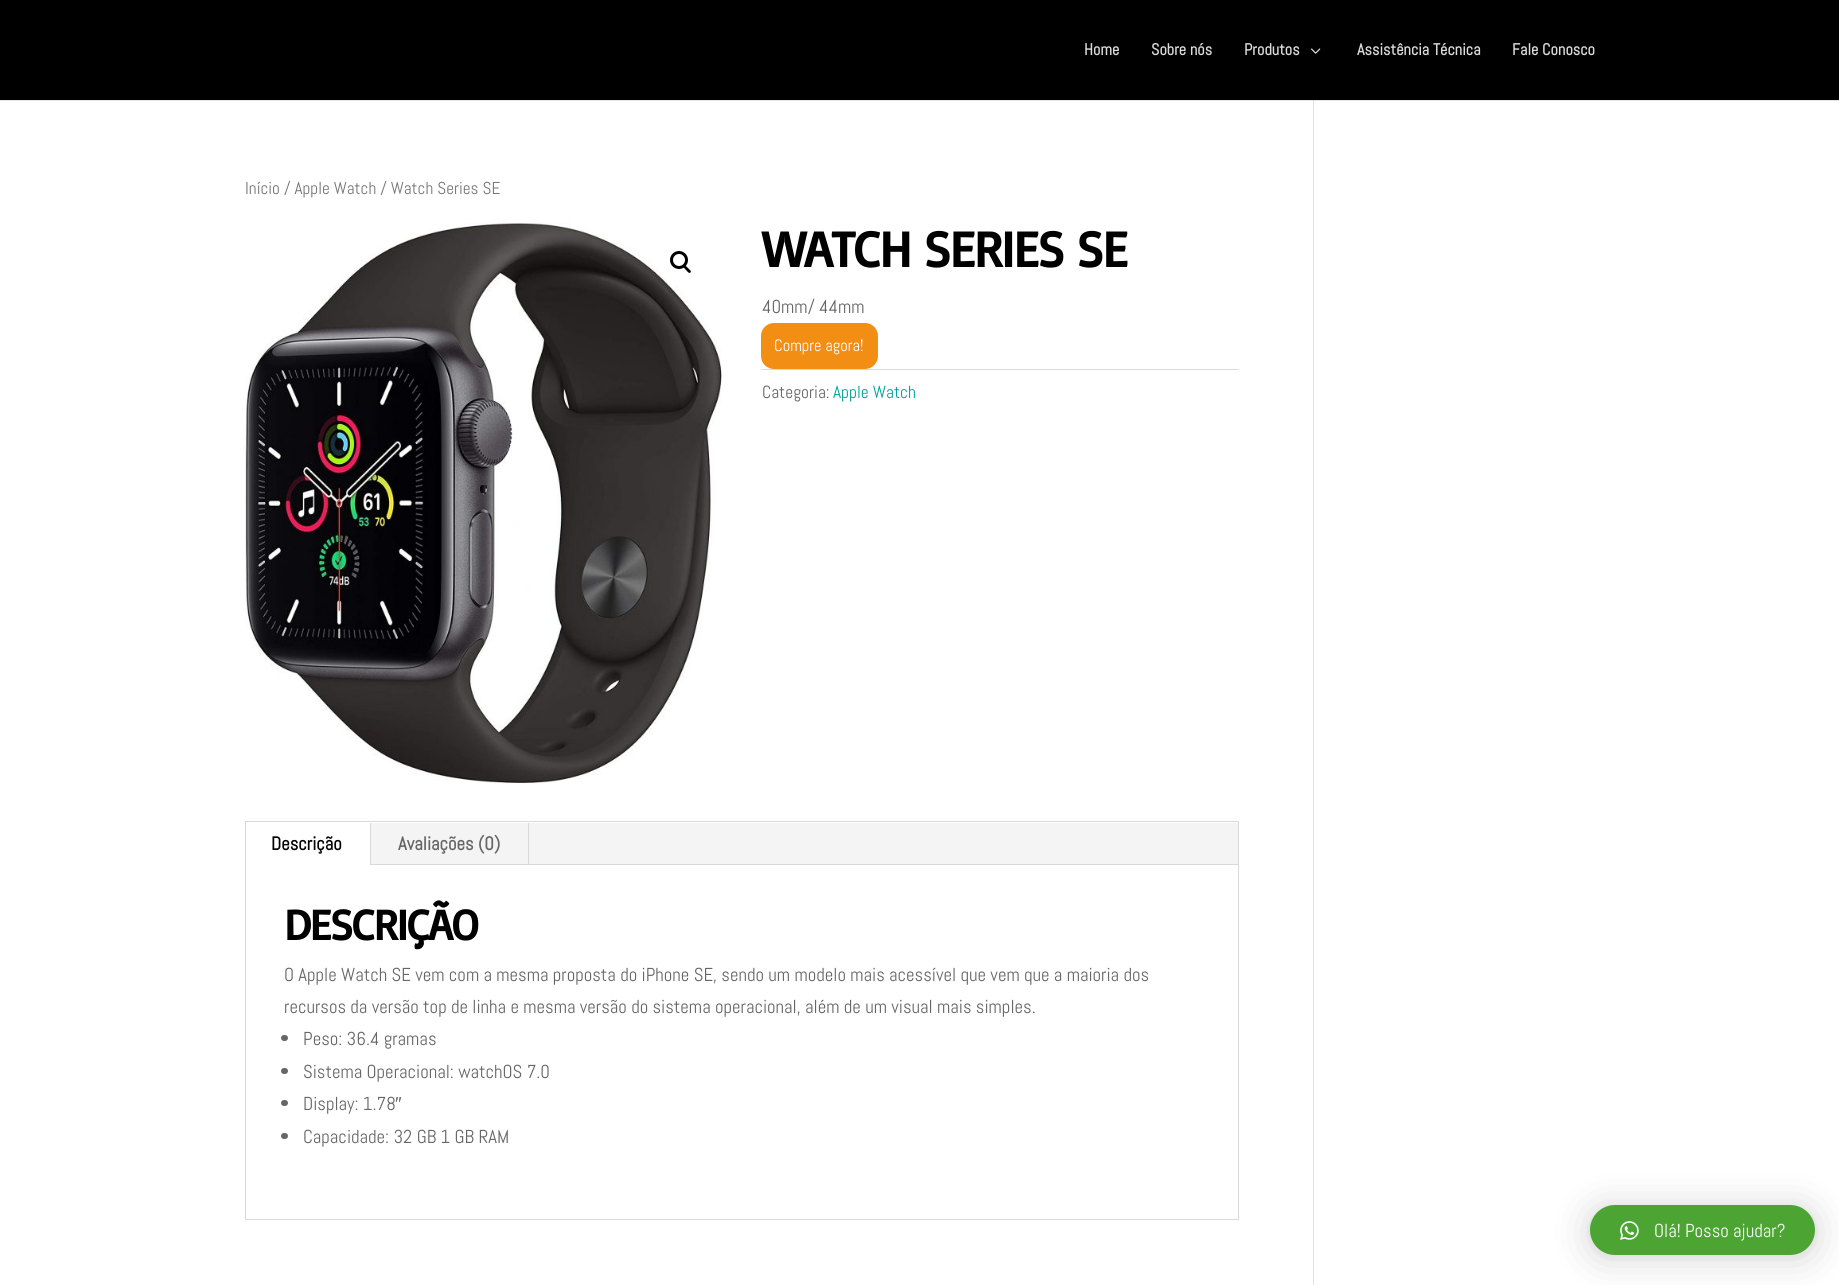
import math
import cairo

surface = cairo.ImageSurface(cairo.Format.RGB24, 1839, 1285)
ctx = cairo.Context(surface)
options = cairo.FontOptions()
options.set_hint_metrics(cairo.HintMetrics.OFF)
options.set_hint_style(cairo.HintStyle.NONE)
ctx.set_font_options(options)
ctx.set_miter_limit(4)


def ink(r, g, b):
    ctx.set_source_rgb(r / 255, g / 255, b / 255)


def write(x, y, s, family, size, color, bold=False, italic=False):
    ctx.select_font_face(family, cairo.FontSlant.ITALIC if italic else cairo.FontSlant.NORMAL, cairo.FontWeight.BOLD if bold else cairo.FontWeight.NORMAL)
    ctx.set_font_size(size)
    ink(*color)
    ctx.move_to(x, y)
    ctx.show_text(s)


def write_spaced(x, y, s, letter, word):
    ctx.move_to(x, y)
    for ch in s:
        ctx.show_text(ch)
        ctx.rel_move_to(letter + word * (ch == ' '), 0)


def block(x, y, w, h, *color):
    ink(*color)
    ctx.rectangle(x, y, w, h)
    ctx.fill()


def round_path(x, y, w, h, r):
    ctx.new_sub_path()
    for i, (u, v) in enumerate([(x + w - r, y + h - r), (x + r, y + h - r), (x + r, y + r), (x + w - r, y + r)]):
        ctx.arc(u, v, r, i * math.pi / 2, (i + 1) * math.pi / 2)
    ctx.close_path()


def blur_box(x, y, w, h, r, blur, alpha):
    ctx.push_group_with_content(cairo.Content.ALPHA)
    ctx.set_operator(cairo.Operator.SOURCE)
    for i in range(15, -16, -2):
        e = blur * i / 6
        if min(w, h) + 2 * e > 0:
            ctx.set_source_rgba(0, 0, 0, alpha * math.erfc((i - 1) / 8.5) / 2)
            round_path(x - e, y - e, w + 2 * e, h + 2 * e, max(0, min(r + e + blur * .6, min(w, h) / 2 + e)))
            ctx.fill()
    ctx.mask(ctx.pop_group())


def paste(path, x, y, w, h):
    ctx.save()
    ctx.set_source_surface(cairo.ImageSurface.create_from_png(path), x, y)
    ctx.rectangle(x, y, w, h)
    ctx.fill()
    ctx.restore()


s1 = dict(family="Abel", size=16.25, color=(219, 219, 219), bold=True)
s2 = dict(family="Abel", size=17.25, color=(118, 118, 118))
s3 = dict(family="Abel", size=18.75, color=(102, 102, 102))
s4 = dict(family="Abel", size=16.5, color=(255, 255, 255))
s5 = dict(family="Abel", size=17.5, color=(102, 102, 102))
s6 = dict(family="Abel", size=17.5, color=(0, 161, 154))
s7 = dict(family="Abel", size=18.75, color=(0, 0, 0), bold=True)
s8 = dict(family="Abel", size=18.75, color=(102, 102, 102), bold=True)
s9 = dict(family="Liberation Sans", size=18.75, color=(102, 102, 102))
s10 = dict(family="Abel", size=18.75, color=(255, 255, 255))

ink(255, 255, 255)
ctx.paint()
block(0, 100, 1839, 1, 230, 230, 230)
block(0, 0, 1839, 100, 0, 0, 0)
write(1084, 55, "Home", **s1)
write(1151, 55, "Sobre nós", **s1)
write(1244, 55, "Produtos", **s1)
paste("pic1.png", 1311, 48, 10, 6)
write(1357, 55, "Assistência Técnica", **s1)
write(1512, 55, "Fale Conosco", **s1)
write(245, 194, "Início / Apple Watch / Watch Series SE", **s2)
paste("pic2.png", 245, 222, 477, 562)
ink(255, 255, 255)
ctx.arc(681.5, 262.5, 22.5, 0, 2 * math.pi)
ctx.fill()
ctx.arc(679, 260, 7.5, 0, 2 * math.pi)
ink(0, 0, 0)
ctx.set_line_width(3)
ctx.stroke()
ctx.new_path()
ctx.move_to(683.5, 265.5)
ctx.curve_to(685, 264, 687, 267.5, 688, 268)
ctx.curve_to(688.5, 269, 692, 271, 690.5, 272.5)
ctx.curve_to(689, 274, 687, 271, 686, 270)
ctx.curve_to(685.5, 269, 682, 267, 683.5, 265.5)
ctx.close_path()
ctx.fill()
ctx.select_font_face("Basic", cairo.FontSlant.NORMAL, cairo.FontWeight.BOLD)
ctx.set_font_size(51.25)
write_spaced(762, 267, "WATCH SERIES SE", -1.25, 0)
write(762, 313, "40mm/ 44mm", **s3)
ink(242, 142, 20)
round_path(761, 323, 117, 46, 13)
ctx.fill()
write(774, 351, "Compre agora!", **s4)
block(761, 369, 478, 1, 218, 218, 218)
write(762, 398, "Categoria:", **s5)
write(833, 398, "Apple Watch", **s6)
ctx.rectangle(245.5, 821.5, 993, 398)
ink(217, 217, 217)
ctx.set_line_width(1)
ctx.stroke()
block(371, 823, 867, 41, 244, 244, 244)
block(370, 823, 1, 42, 217, 217, 217)
write(271, 850, "Descrição", **s7)
block(528, 823, 1, 42, 217, 217, 217)
write(398, 850, "Avaliações (0)", **s8)
block(371, 864, 867, 1, 217, 217, 217)
ctx.select_font_face("Basic", cairo.FontSlant.NORMAL, cairo.FontWeight.BOLD)
ctx.set_font_size(43.75)
ink(0, 0, 0)
write_spaced(284, 940, "DESCRIÇÃO", -1.25, 0)
write(284, 981, "O Apple Watch SE vem com a mesma proposta do iPhone SE, sendo um modelo mais acessível que vem que a maioria dos", **s3)
write(284, 1013, "recursos da versão top de linha e mesma versão do sistema operacional, além de um visual mais simples.", **s3)
round_path(281, 1035, 7, 6, 3)
ctx.fill()
write(303, 1045, "Peso: 36.4 gramas", **s3)
round_path(281, 1068, 7, 6, 3)
ctx.fill()
write(303, 1078, "Sistema Operacional: watchOS 7.0", **s3)
write(303, 1110, "Display: 1.78", **s3)
write(395, 1110, "″", **s9)
round_path(281, 1100, 7, 6, 3)
ctx.fill()
round_path(281, 1133, 7, 6, 3)
ctx.fill()
write(303, 1143, "Capacidade: 32 GB 1 GB RAM", **s3)
block(1313, 100, 1, 1185, 226, 226, 226)
block(1313, 100, 1, 1, 203, 203, 203)
ink(0, 0, 0)
blur_box(1590, 1208, 225, 50, 25, 20, 0.16)
blur_box(1590, 1206, 225, 50, 25, 4, 0.06)
ink(76, 165, 51)
round_path(1590, 1205, 225, 50, 25)
ctx.fill()
paste("pic3.png", 1620, 1221, 19, 19)
write(1654, 1237, "Olá! Posso ajudar?", **s10)
surface.write_to_png("screenshot.png")
